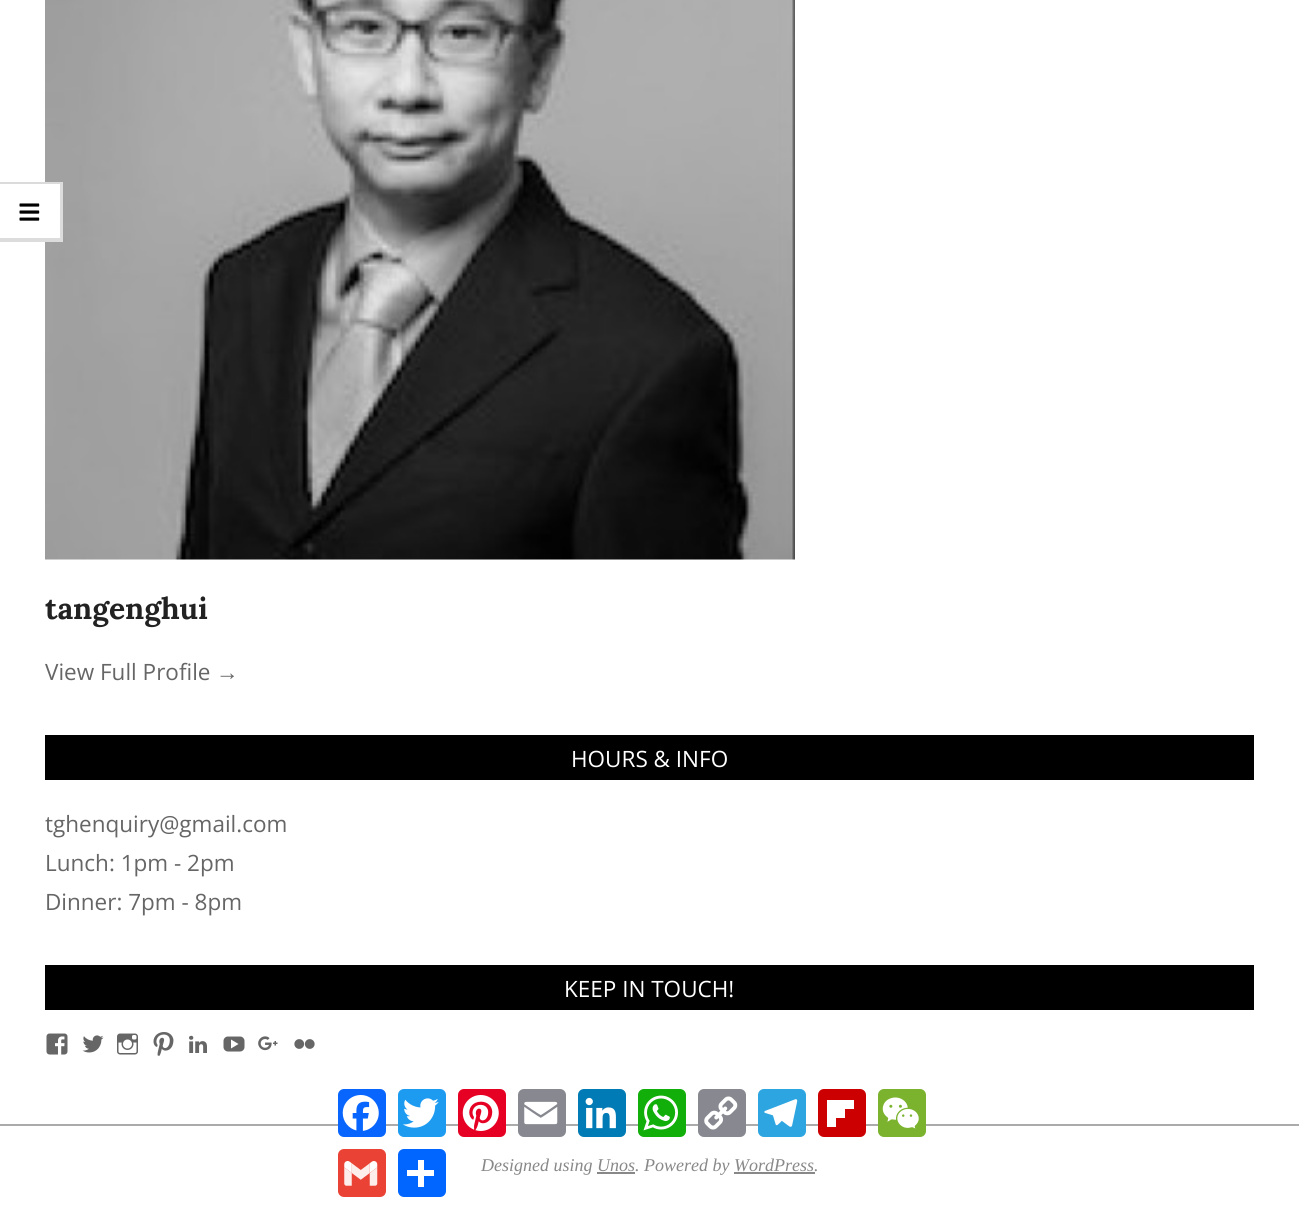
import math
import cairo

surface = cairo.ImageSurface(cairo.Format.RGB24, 1299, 1209)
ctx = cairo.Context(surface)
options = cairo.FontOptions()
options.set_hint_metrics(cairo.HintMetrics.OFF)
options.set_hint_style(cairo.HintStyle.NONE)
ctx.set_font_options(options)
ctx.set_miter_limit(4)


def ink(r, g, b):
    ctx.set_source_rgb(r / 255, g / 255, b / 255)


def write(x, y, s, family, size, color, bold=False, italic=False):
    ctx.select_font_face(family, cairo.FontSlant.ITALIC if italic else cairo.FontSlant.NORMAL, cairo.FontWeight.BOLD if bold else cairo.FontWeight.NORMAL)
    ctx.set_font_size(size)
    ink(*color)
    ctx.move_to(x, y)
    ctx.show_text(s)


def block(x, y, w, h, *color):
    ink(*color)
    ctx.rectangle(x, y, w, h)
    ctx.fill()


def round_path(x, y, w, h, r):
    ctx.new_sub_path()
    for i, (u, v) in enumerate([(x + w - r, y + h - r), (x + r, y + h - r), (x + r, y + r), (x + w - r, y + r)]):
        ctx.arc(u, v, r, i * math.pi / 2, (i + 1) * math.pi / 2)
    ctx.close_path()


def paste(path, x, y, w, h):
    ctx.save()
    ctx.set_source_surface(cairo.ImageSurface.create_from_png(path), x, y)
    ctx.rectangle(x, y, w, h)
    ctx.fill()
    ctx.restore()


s1 = dict(family="Lora", size=30, color=(34, 34, 34), bold=True)
s2 = dict(family="Open Sans", size=22.5, color=(102, 102, 102))
s3 = dict(family="Liberation Sans", size=22.5, color=(102, 102, 102))
s4 = dict(family="Open Sans", size=22.5, color=(255, 255, 255))
s5 = dict(family="Liberation Serif", size=18, color=(136, 136, 136), italic=True)

ink(255, 255, 255)
ctx.paint()
paste("pic2.png", 45, 0, 750, 560)
block(45, 182, 18, 60, 255, 255, 255)
ink(219, 219, 219)
ctx.new_path()
ctx.move_to(0, 182)
ctx.line_to(63, 182)
ctx.line_to(60, 184)
ctx.line_to(0, 184)
ctx.close_path()
ctx.fill()
ctx.set_source_rgba(0, 0, 0, 0.14)
ctx.new_path()
ctx.move_to(63, 182)
ctx.line_to(63, 242)
ctx.line_to(60, 238)
ctx.line_to(60, 184)
ctx.close_path()
ctx.fill()
ctx.new_path()
ctx.move_to(63, 242)
ctx.line_to(0, 242)
ctx.line_to(0, 238)
ctx.line_to(60, 238)
ctx.close_path()
ctx.fill()
paste("pic1.png", 19, 203, 21, 18)
write(45, 619, "tangenghui", **s1)
write(45, 680, "View Full Profile", **s2)
write(216, 680, "→", **s3)
block(45, 735, 1209, 45, 0, 0, 0)
write(571, 767, "HOURS & INFO", **s4)
write(45, 832, "tghenquiry@gmail.com", **s2)
write(45, 871, "Lunch: 1pm - 2pm", **s2)
write(45, 910, "Dinner: 7pm - 8pm", **s2)
block(45, 965, 1209, 45, 0, 0, 0)
write(564, 997, "KEEP IN TOUCH!", **s4)
paste("pic3.png", 46, 1033, 22, 22)
paste("pic4.png", 82, 1035, 22, 18)
paste("pic5.png", 117, 1033, 21, 22)
paste("pic6.png", 153, 1032, 21, 24)
paste("pic7.png", 189, 1035, 18, 18)
paste("pic8.png", 223, 1036, 22, 16)
paste("pic9.png", 258, 1036, 20, 15)
paste("pic10.png", 294, 1039, 21, 10)
block(0, 1124, 1299, 2, 171, 171, 171)
write(481, 1171, "Designed using Unos. Powered by WordPress.", **s5)
block(597, 1172, 38, 2, 136, 136, 136)
block(734, 1172, 81, 2, 136, 136, 136)
ink(8, 102, 255)
round_path(338, 1089, 48, 48, 6)
ctx.fill()
paste("pic11.png", 342, 1095, 37, 36)
ink(29, 155, 240)
round_path(398, 1089, 48, 48, 6)
ctx.fill()
paste("pic12.png", 403, 1098, 36, 30)
ink(230, 0, 35)
round_path(458, 1089, 48, 48, 6)
ctx.fill()
paste("pic13.png", 462, 1095, 37, 36)
ink(136, 137, 144)
round_path(518, 1089, 48, 48, 6)
ctx.fill()
paste("pic14.png", 524, 1101, 34, 24)
ink(0, 123, 181)
round_path(578, 1089, 48, 48, 6)
ctx.fill()
paste("pic15.png", 585, 1097, 31, 32)
ink(18, 175, 10)
round_path(638, 1089, 48, 48, 6)
ctx.fill()
paste("pic16.png", 643, 1095, 35, 36)
ink(136, 137, 144)
round_path(698, 1089, 48, 48, 6)
ctx.fill()
paste("pic17.png", 704, 1096, 34, 34)
ink(44, 165, 224)
round_path(758, 1089, 48, 48, 6)
ctx.fill()
paste("pic18.png", 764, 1099, 34, 28)
ink(204, 0, 0)
round_path(818, 1089, 48, 48, 6)
ctx.fill()
block(836, 1109, 9, 9, 255, 255, 255)
block(836, 1100, 18, 9, 255, 255, 255)
block(827, 1100, 9, 27, 255, 255, 255)
ink(123, 179, 46)
round_path(878, 1089, 48, 48, 6)
ctx.fill()
paste("pic19.png", 882, 1097, 37, 32)
ink(234, 67, 53)
round_path(338, 1149, 48, 48, 6)
ctx.fill()
paste("pic20.png", 344, 1161, 34, 25)
ink(1, 102, 255)
round_path(398, 1149, 48, 48, 6)
ctx.fill()
block(418, 1160, 6, 27, 255, 255, 255)
block(407, 1170, 27, 6, 255, 255, 255)
surface.write_to_png("screenshot.png")
